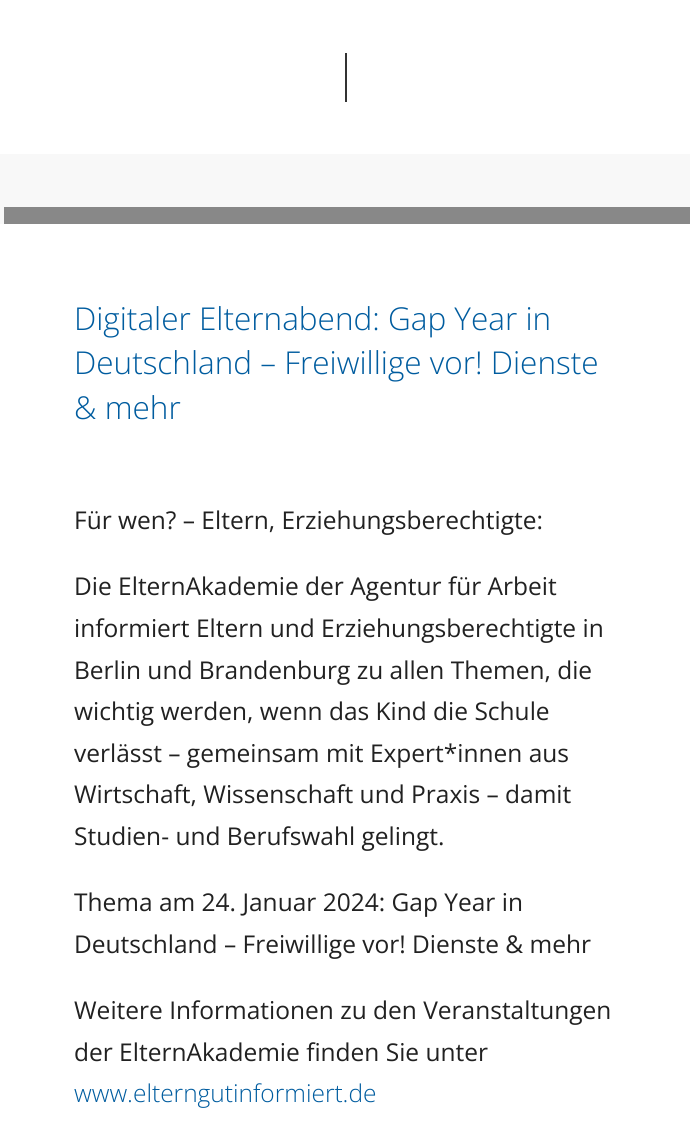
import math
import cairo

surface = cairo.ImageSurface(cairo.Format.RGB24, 690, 1132)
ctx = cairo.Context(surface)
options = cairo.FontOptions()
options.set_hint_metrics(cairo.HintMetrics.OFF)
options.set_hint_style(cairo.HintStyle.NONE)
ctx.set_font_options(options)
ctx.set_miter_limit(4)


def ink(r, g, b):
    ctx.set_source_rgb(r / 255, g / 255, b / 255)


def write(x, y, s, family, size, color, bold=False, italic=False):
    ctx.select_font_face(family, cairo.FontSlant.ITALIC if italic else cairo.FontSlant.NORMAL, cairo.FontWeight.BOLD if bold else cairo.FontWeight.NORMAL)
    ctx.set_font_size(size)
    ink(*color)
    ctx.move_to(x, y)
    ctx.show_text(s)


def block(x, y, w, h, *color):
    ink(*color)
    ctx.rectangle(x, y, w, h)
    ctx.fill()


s1 = dict(family="Open Sans Light", size=31.5, color=(0, 92, 159))
s2 = dict(family="Open Sans", size=24.5, color=(33, 33, 33))
s3 = dict(family="Open Sans Light", size=24.5, color=(0, 92, 159))

ink(255, 255, 255)
ctx.paint()
block(345, 53, 2, 49, 51, 51, 51)
block(0, 154, 690, 70, 248, 248, 248)
block(4, 207, 686, 17, 136, 136, 136)
write(74, 330, "Digitaler Elternabend: Gap Year in", **s1)
write(74, 374, "Deutschland – Freiwillige vor! Dienste", **s1)
write(74, 419, "& mehr", **s1)
write(74, 529, "Für wen? – Eltern, Erziehungsberechtigte:", **s2)
write(74, 595, "Die ElternAkademie der Agentur für Arbeit", **s2)
write(74, 637, "informiert Eltern und Erziehungsberechtigte in", **s2)
write(74, 679, "Berlin und Brandenburg zu allen Themen, die", **s2)
write(74, 720, "wichtig werden, wenn das Kind die Schule", **s2)
write(74, 762, "verlässt – gemeinsam mit Expert*innen aus", **s2)
write(74, 803, "Wirtschaft, Wissenschaft und Praxis – damit", **s2)
write(74, 845, "Studien- und Berufswahl gelingt.", **s2)
write(74, 911, "Thema am 24. Januar 2024: Gap Year in", **s2)
write(74, 953, "Deutschland – Freiwillige vor! Dienste & mehr", **s2)
write(74, 1019, "Weitere Informationen zu den Veranstaltungen", **s2)
write(74, 1061, "der ElternAkademie finden Sie unter", **s2)
write(74, 1102, "www.elterngutinformiert.de", **s3)
surface.write_to_png("screenshot.png")
